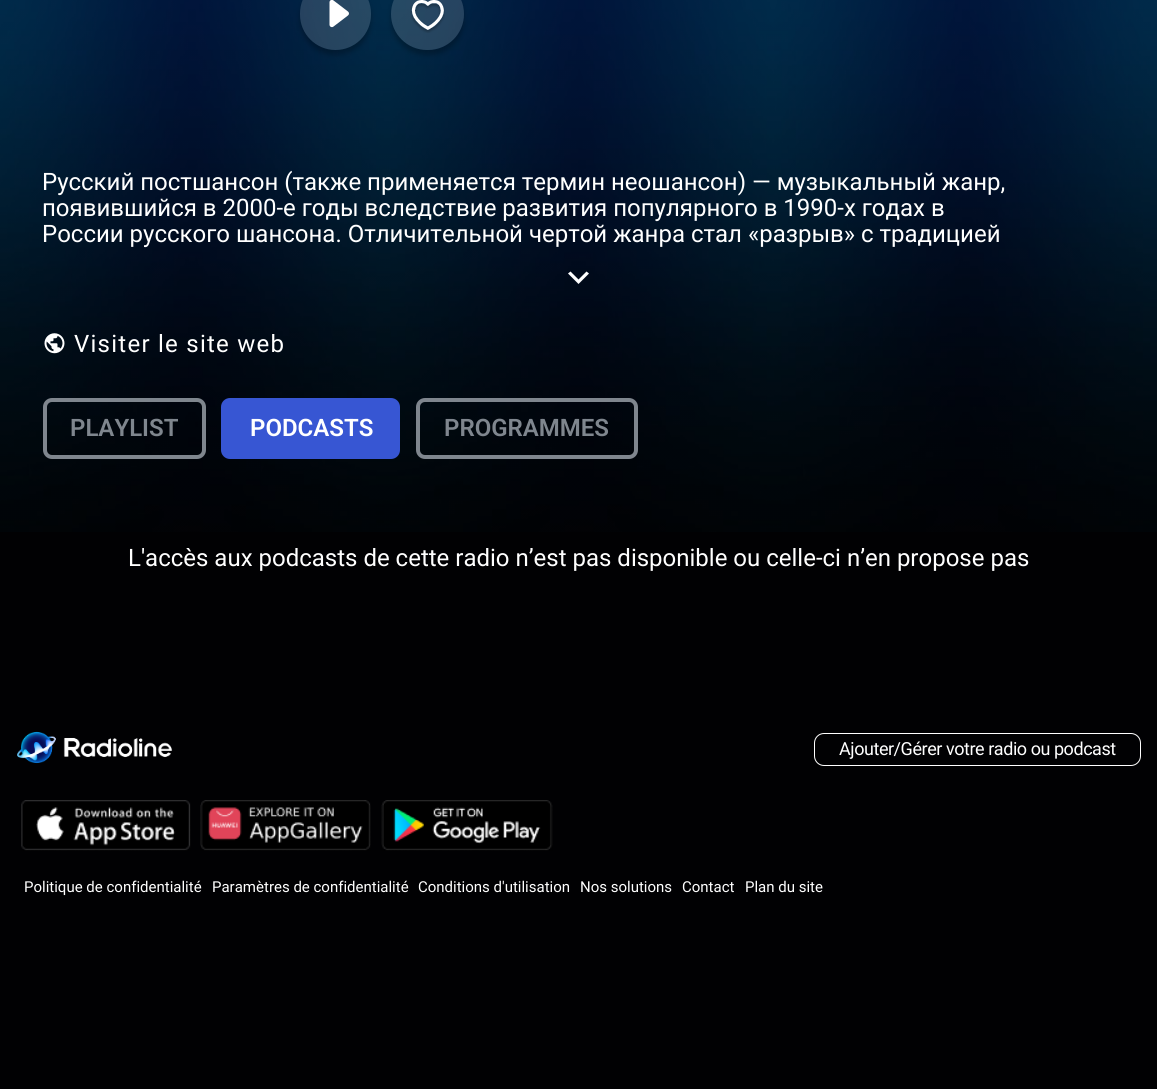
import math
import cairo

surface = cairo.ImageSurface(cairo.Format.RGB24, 1157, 1089)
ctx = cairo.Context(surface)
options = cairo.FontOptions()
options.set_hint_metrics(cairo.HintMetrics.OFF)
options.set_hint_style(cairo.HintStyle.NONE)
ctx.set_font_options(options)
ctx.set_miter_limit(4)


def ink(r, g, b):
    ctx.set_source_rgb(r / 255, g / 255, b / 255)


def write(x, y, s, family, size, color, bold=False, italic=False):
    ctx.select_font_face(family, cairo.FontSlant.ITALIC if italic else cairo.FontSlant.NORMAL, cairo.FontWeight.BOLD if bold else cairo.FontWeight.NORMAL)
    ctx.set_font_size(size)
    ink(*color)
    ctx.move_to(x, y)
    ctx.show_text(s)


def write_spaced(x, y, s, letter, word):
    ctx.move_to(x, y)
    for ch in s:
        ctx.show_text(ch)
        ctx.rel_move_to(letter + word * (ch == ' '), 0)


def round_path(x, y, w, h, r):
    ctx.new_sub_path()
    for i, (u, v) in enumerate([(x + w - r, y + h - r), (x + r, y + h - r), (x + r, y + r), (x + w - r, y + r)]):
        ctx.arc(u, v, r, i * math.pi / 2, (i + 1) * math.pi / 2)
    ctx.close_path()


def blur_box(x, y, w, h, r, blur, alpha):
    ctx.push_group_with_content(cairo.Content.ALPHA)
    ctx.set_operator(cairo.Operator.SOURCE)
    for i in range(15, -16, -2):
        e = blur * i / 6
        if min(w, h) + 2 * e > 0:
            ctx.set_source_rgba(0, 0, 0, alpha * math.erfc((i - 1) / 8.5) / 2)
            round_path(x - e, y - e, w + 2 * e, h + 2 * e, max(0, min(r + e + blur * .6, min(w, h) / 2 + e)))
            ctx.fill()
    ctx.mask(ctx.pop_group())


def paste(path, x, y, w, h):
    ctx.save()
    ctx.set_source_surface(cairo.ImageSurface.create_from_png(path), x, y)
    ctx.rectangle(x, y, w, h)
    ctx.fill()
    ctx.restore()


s1 = dict(family="Roboto", size=24, color=(255, 255, 255))
s2 = dict(family="Roboto SemiBold", size=24, color=(127, 134, 142))
s3 = dict(family="Roboto SemiBold", size=24, color=(255, 255, 255))
s4 = dict(family="Roboto", size=15, color=(255, 255, 255))

ink(1, 1, 3)
ctx.paint()
paste("pic1.png", 0, 0, 1157, 532)
ctx.save()
ctx.set_fill_rule(cairo.FillRule.EVEN_ODD)
ctx.new_path()
ctx.move_to(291, 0)
ctx.line_to(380, 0)
ctx.line_to(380, 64)
ctx.line_to(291, 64)
ctx.close_path()
ctx.move_to(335.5, -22)
ctx.curve_to(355, -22, 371, -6, 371, 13.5)
ctx.line_to(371, 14.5)
ctx.curve_to(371, 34, 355, 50, 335.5, 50)
ctx.curve_to(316, 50, 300, 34, 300, 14.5)
ctx.line_to(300, 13.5)
ctx.curve_to(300, -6, 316, -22, 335.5, -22)
ctx.close_path()
ctx.clip()
ink(0, 0, 0)
blur_box(300, -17, 71, 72, 35.5, 2.5, 0.25)
ctx.restore()
ctx.set_source_rgba(1, 1, 1, 0.15)
round_path(300, -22, 71, 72, 35.5)
ctx.fill()
paste("pic2.png", 329, 0, 20, 28)
ctx.save()
ctx.set_fill_rule(cairo.FillRule.EVEN_ODD)
ctx.new_path()
ctx.move_to(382, 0)
ctx.line_to(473, 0)
ctx.line_to(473, 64)
ctx.line_to(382, 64)
ctx.close_path()
ctx.move_to(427, -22)
ctx.line_to(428, -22)
ctx.curve_to(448, -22, 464, -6, 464, 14)
ctx.curve_to(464, 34, 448, 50, 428, 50)
ctx.line_to(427, 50)
ctx.curve_to(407, 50, 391, 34, 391, 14)
ctx.curve_to(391, -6, 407, -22, 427, -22)
ctx.close_path()
ctx.clip()
ink(0, 0, 0)
blur_box(391, -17, 73, 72, 36, 2.5, 0.25)
ctx.restore()
round_path(391, -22, 73, 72, 36)
ctx.fill()
paste("pic3.png", 410, 0, 35, 33)
write(42, 190, "Русский постшансон (также применяется термин неошансон) — музыкальный жанр,", **s1)
write(42, 216, "появившийся в 2000-е годы вследствие развития популярного в 1990-х годах в", **s1)
write(42, 242, "России русского шансона. Отличительной чертой жанра стал «разрыв» с традицией", **s1)
ctx.new_path()
ctx.move_to(570.5, 271.5)
ctx.line_to(578.5, 279.5)
ctx.line_to(586.5, 271.5)
ctx.line_to(589, 273.5)
ctx.line_to(578.5, 284)
ctx.line_to(568, 273.5)
ctx.close_path()
ctx.fill()
paste("pic4.png", 44, 333, 21, 21)
write_spaced(74, 352, "Visiter le site web", 1.25, 0)
round_path(45, 400, 159, 57, 7)
ink(127, 134, 142)
ctx.set_line_width(4)
ctx.stroke()
write(70, 436, "PLAYLIST", **s2)
ink(55, 86, 211)
round_path(223, 400, 175, 57, 7)
ctx.fill_preserve()
ctx.stroke()
write(250, 436, "PODCASTS", **s3)
round_path(418, 400, 218, 57, 7)
ink(127, 134, 142)
ctx.stroke()
write(444, 436, "PROGRAMMES", **s2)
write(128, 566, "L'accès aux podcasts de cette radio n’est pas disponible ou celle-ci n’en propose pas", **s1)
paste("pic5.png", 17, 731, 156, 33)
round_path(814.5, 733.5, 326, 32, 9.5)
ctx.set_line_width(1)
ctx.stroke()
ctx.set_font_size(18)
write_spaced(839, 755, "Ajouter/Gérer votre radio ou podcast", -0.45, 0)
paste("pic6.png", 21, 800, 170, 51)
paste("pic7.png", 200, 800, 171, 51)
paste("pic8.png", 381, 800, 172, 51)
write(24, 892, "Politique de confidentialité", **s4)
write(212, 892, "Paramètres de confidentialité", **s4)
write(418, 892, "Conditions d'utilisation", **s4)
write(580, 892, "Nos solutions", **s4)
write(682, 892, "Contact", **s4)
write(745, 892, "Plan du site", **s4)
surface.write_to_png("screenshot.png")
